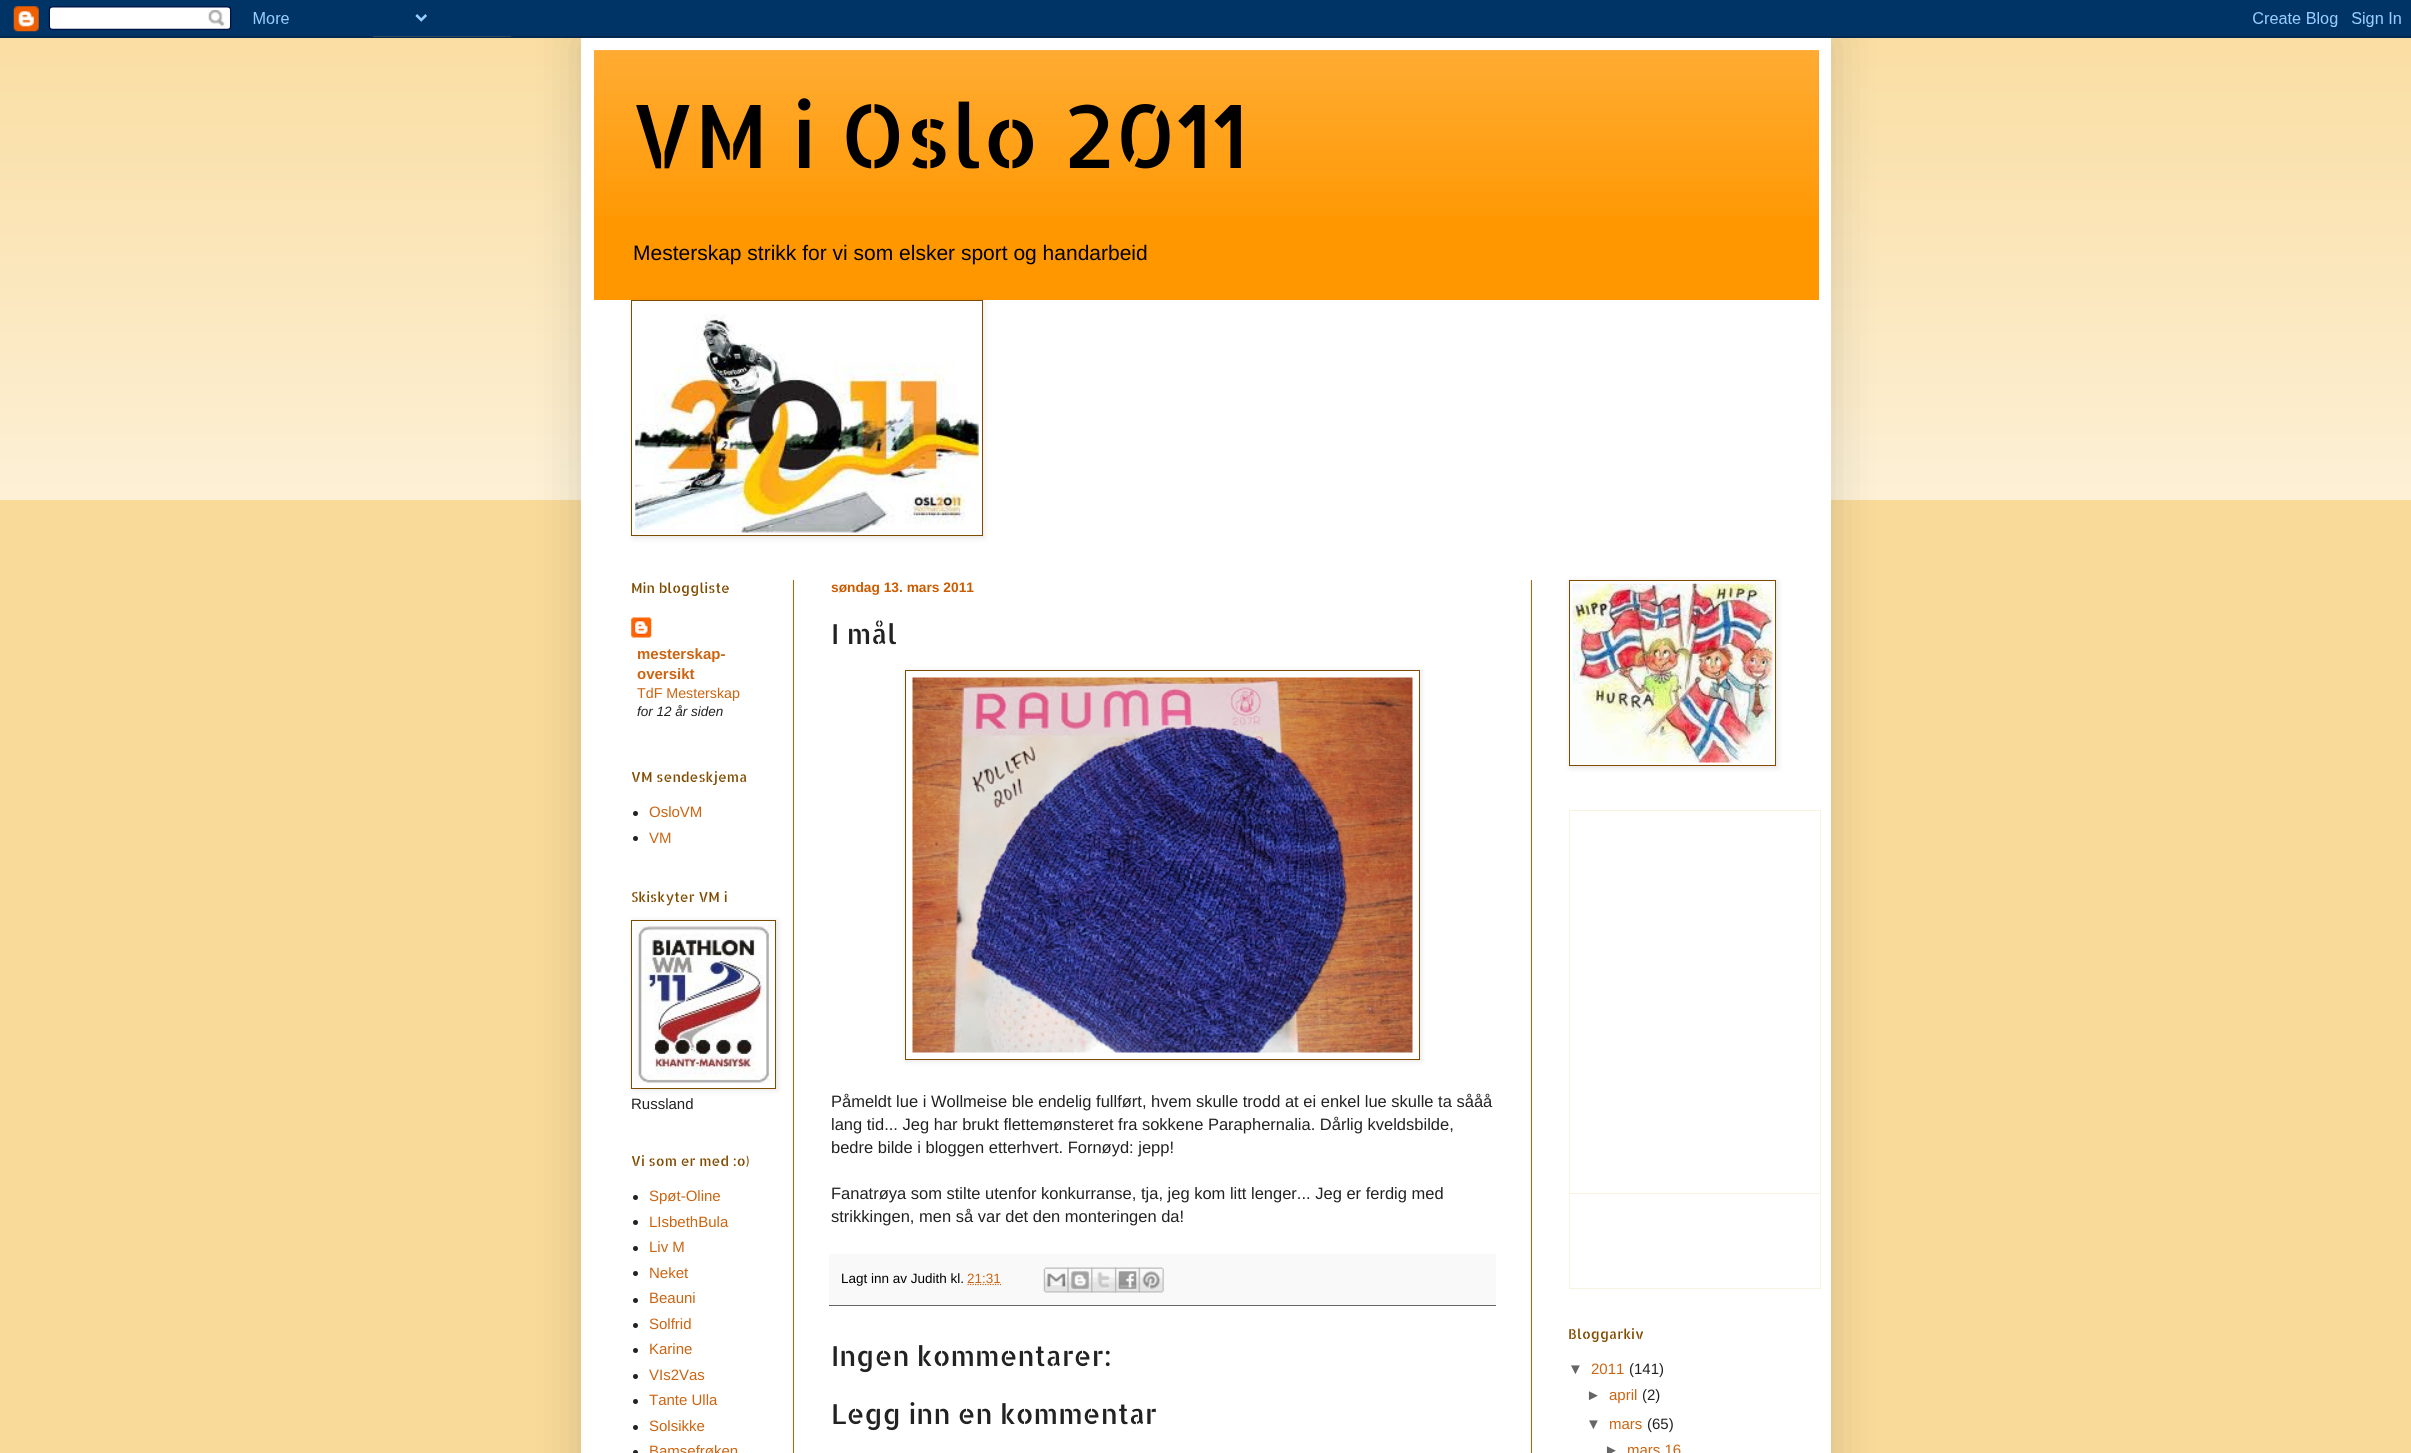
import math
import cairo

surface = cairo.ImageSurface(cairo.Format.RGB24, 2411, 1453)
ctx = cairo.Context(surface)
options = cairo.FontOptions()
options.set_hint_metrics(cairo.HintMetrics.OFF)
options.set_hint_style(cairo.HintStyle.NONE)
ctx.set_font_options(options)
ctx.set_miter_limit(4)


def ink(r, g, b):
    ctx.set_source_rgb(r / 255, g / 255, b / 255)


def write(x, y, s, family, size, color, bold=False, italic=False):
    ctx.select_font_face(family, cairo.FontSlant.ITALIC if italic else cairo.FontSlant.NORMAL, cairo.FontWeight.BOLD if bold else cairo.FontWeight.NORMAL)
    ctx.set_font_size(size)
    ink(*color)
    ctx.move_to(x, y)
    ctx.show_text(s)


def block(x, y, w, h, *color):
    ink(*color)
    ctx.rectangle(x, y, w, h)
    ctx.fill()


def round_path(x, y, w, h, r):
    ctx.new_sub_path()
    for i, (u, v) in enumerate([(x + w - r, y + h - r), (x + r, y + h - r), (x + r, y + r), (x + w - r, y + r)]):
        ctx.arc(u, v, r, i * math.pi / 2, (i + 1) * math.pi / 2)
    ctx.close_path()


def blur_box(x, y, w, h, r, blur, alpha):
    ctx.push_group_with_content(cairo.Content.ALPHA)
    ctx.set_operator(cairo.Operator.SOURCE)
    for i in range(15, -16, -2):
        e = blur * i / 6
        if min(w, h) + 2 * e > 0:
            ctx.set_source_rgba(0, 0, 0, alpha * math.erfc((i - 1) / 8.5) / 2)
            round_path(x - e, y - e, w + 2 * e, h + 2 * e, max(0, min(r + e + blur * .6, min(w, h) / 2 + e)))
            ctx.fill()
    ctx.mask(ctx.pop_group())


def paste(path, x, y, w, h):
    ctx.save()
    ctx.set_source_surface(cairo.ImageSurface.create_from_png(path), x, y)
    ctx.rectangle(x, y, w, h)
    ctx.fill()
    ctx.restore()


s1 = dict(family="Allerta Stencil", size=87.5, color=(0, 0, 0))
s2 = dict(family="Liberation Sans", size=21, color=(0, 0, 0))
s3 = dict(family="Allerta Stencil", size=13.75, color=(127, 75, 0))
s4 = dict(family="Liberation Sans", size=15, color=(204, 100, 17), bold=True)
s5 = dict(family="Liberation Sans", size=14.25, color=(204, 100, 17))
s6 = dict(family="Liberation Sans", size=13.5, color=(34, 34, 34), italic=True)
s7 = dict(family="Liberation Sans", size=15, color=(204, 100, 17))
s8 = dict(family="Liberation Sans", size=15, color=(34, 34, 34))
s9 = dict(family="Liberation Sans", size=13.75, color=(204, 91, 0), bold=True)
s10 = dict(family="Allerta Stencil", size=27.5, color=(34, 34, 34))
s11 = dict(family="Liberation Sans", size=16.5, color=(34, 34, 34))
s12 = dict(family="Liberation Sans", size=13.5, color=(0, 0, 0))
s13 = dict(family="Liberation Sans", size=13.5, color=(204, 100, 17))
s14 = dict(family="Liberation Sans", size=15, color=(102, 102, 102))

ink(249, 218, 153)
ctx.paint()
paste("pic2.png", 0, 36, 2411, 464)
ink(0, 0, 0)
blur_box(581, 38, 1250, 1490, 0, 25, 0.15)
paste("pic1.png", 0, 0, 2411, 38)
block(581, 38, 1250, 1415, 255, 255, 255)
block(594, 50, 1225, 250, 255, 151, 0)
paste("pic3.png", 594, 50, 1225, 166)
write(631, 168, "VM i Oslo 2011", **s1)
write(633, 260, "Mesterskap strikk for vi som elsker sport og handarbeid", **s2)
ink(0, 0, 0)
blur_box(633, 301, 351, 237, 0, 3, 0.1)
ink(255, 255, 255)
ctx.rectangle(631.5, 300.5, 351, 235)
ctx.fill_preserve()
ink(127, 75, 0)
ctx.set_line_width(1)
ctx.stroke()
paste("pic4.png", 635, 314, 344, 219)
block(793, 580, 1, 873, 204, 91, 0)
block(1531, 580, 1, 873, 204, 91, 0)
write(631, 593, "Min bloggliste", **s3)
paste("pic5.png", 631, 617, 21, 21)
write(637, 659, "mesterskap-", **s4)
write(637, 679, "oversikt", **s4)
write(637, 698, "TdF Mesterskap", **s5)
write(637, 716, "for 12 år siden", **s6)
write(631, 782, "VM sendeskjema", **s3)
ink(34, 34, 34)
ctx.new_path()
ctx.arc(635.5, 813.5, 2.5, 0, 2 * math.pi)
ctx.fill()
write(649, 817, "OsloVM", **s7)
ink(34, 34, 34)
ctx.new_path()
ctx.arc(635.5, 838.5, 2.5, 0, 2 * math.pi)
ctx.fill()
write(649, 843, "VM", **s7)
write(631, 902, "Skiskyter VM i", **s3)
ink(0, 0, 0)
blur_box(633, 921, 145, 169, 0, 3, 0.1)
ink(255, 255, 255)
ctx.rectangle(631.5, 920.5, 144, 168)
ctx.fill_preserve()
ink(127, 75, 0)
ctx.stroke()
paste("pic6.png", 635, 924, 138, 160)
write(631, 1109, "Russland", **s8)
write(631, 1166, "Vi som er med :o)", **s3)
ink(34, 34, 34)
ctx.new_path()
ctx.arc(635.5, 1197.5, 2.5, 0, 2 * math.pi)
ctx.fill()
write(649, 1201, "Spøt-Oline", **s7)
ink(34, 34, 34)
ctx.new_path()
ctx.arc(635.5, 1222.5, 2.5, 0, 2 * math.pi)
ctx.fill()
write(649, 1227, "LIsbethBula", **s7)
ink(34, 34, 34)
ctx.new_path()
ctx.arc(635.5, 1248.5, 2.5, 0, 2 * math.pi)
ctx.fill()
write(649, 1252, "Liv M", **s7)
ink(34, 34, 34)
ctx.new_path()
ctx.arc(635.5, 1273.5, 2.5, 0, 2 * math.pi)
ctx.fill()
write(649, 1278, "Neket", **s7)
ink(34, 34, 34)
ctx.new_path()
ctx.arc(635.5, 1300.5, 2.5, 0, 2 * math.pi)
ctx.fill()
write(649, 1303, "Beauni", **s7)
ink(34, 34, 34)
ctx.new_path()
ctx.arc(635.5, 1325.5, 2.5, 0, 2 * math.pi)
ctx.fill()
write(649, 1329, "Solfrid", **s7)
ink(34, 34, 34)
ctx.new_path()
ctx.arc(635.5, 1350.5, 2.5, 0, 2 * math.pi)
ctx.fill()
write(649, 1354, "Karine", **s7)
ink(34, 34, 34)
ctx.new_path()
ctx.arc(635.5, 1376.5, 2.5, 0, 2 * math.pi)
ctx.fill()
write(649, 1380, "VIs2Vas", **s7)
ink(34, 34, 34)
ctx.new_path()
ctx.arc(635.5, 1401.5, 2.5, 0, 2 * math.pi)
ctx.fill()
write(649, 1405, "Tante Ulla", **s7)
ink(34, 34, 34)
ctx.new_path()
ctx.arc(635.5, 1427.5, 2.5, 0, 2 * math.pi)
ctx.fill()
write(649, 1431, "Solsikke", **s7)
ink(34, 34, 34)
ctx.new_path()
ctx.arc(635.5, 1452.5, 2.5, 0, 2 * math.pi)
ctx.fill()
write(649, 1456, "Bamsefrøken", **s7)
write(831, 592, "søndag 13. mars 2011", **s9)
write(831, 644, "I mål", **s10)
ctx.save()
ctx.set_fill_rule(cairo.FillRule.EVEN_ODD)
ctx.new_path()
ctx.move_to(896, 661)
ctx.line_to(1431, 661)
ctx.line_to(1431, 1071)
ctx.line_to(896, 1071)
ctx.close_path()
ctx.move_to(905, 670)
ctx.line_to(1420, 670)
ctx.line_to(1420, 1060)
ctx.line_to(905, 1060)
ctx.close_path()
ctx.clip()
ink(0, 0, 0)
blur_box(906, 671, 515, 390, 0, 3, 0.1)
ctx.restore()
ctx.rectangle(905.5, 670.5, 514, 389)
ink(127, 75, 0)
ctx.stroke()
paste("pic7.png", 912, 677, 501, 376)
write(831, 1107, "Påmeldt lue i Wollmeise ble endelig fullført, hvem skulle trodd at ei enkel lue skulle ta sååå", **s11)
write(831, 1130, "lang tid... Jeg har brukt flettemønsteret fra sokkene Paraphernalia. Dårlig kveldsbilde,", **s11)
write(831, 1153, "bedre bilde i bloggen etterhvert. Fornøyd: jepp!", **s11)
write(831, 1199, "Fanatrøya som stilte utenfor konkurranse, tja, jeg kom litt lenger... Jeg er ferdig med", **s11)
write(831, 1222, "strikkingen, men så var det den monteringen da!", **s11)
block(829, 1254, 667, 51, 249, 249, 249)
block(829, 1305, 667, 1, 102, 102, 102)
write(841, 1283, "Lagt inn av Judith kl.", **s12)
ctx.new_path()
ctx.move_to(967.5, 1284.5)
ctx.line_to(1001, 1284.5)
ink(204, 100, 17)
ctx.set_line_width(1.2)
ctx.set_dash([1.25, 1.25])
ctx.stroke()
write(967, 1283, "21:31", **s13)
paste("pic8.png", 1043, 1267, 26, 26)
paste("pic9.png", 1067, 1267, 26, 26)
paste("pic10.png", 1091, 1267, 26, 26)
paste("pic11.png", 1115, 1267, 25, 26)
paste("pic12.png", 1138, 1267, 26, 26)
write(831, 1366, "Ingen kommentarer:", **s10)
write(831, 1424, "Legg inn en kommentar", **s10)
ctx.save()
ctx.set_fill_rule(cairo.FillRule.EVEN_ODD)
ctx.new_path()
ctx.move_to(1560, 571)
ctx.line_to(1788, 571)
ctx.line_to(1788, 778)
ctx.line_to(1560, 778)
ctx.close_path()
ctx.move_to(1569, 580)
ctx.line_to(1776, 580)
ctx.line_to(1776, 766)
ctx.line_to(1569, 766)
ctx.close_path()
ctx.clip()
ink(0, 0, 0)
blur_box(1570, 581, 208, 187, 0, 3, 0.1)
ctx.restore()
ctx.rectangle(1569.5, 580.5, 206, 185)
ink(127, 75, 0)
ctx.set_line_width(1)
ctx.set_dash([])
ctx.stroke()
paste("pic13.png", 1572, 583, 201, 180)
ctx.rectangle(1569.5, 810.5, 251, 383)
ink(246, 243, 224)
ctx.stroke()
block(1820, 1194, 1, 95, 246, 243, 224)
block(1569, 1288, 252, 1, 246, 243, 224)
block(1569, 1194, 1, 95, 246, 243, 224)
write(1568, 1339, "Bloggarkiv", **s3)
write(1568, 1374, "▼", **s14)
write(1591, 1374, "2011", **s7)
write(1629, 1374, "(141)", **s8)
write(1586, 1400, "►", **s14)
write(1609, 1400, "april", **s7)
write(1642, 1400, "(2)", **s8)
write(1586, 1429, "▼", **s14)
write(1609, 1429, "mars", **s7)
write(1647, 1429, "(65)", **s8)
write(1604, 1455, "►", **s14)
write(1627, 1455, "mars 16", **s7)
surface.write_to_png("screenshot.png")
